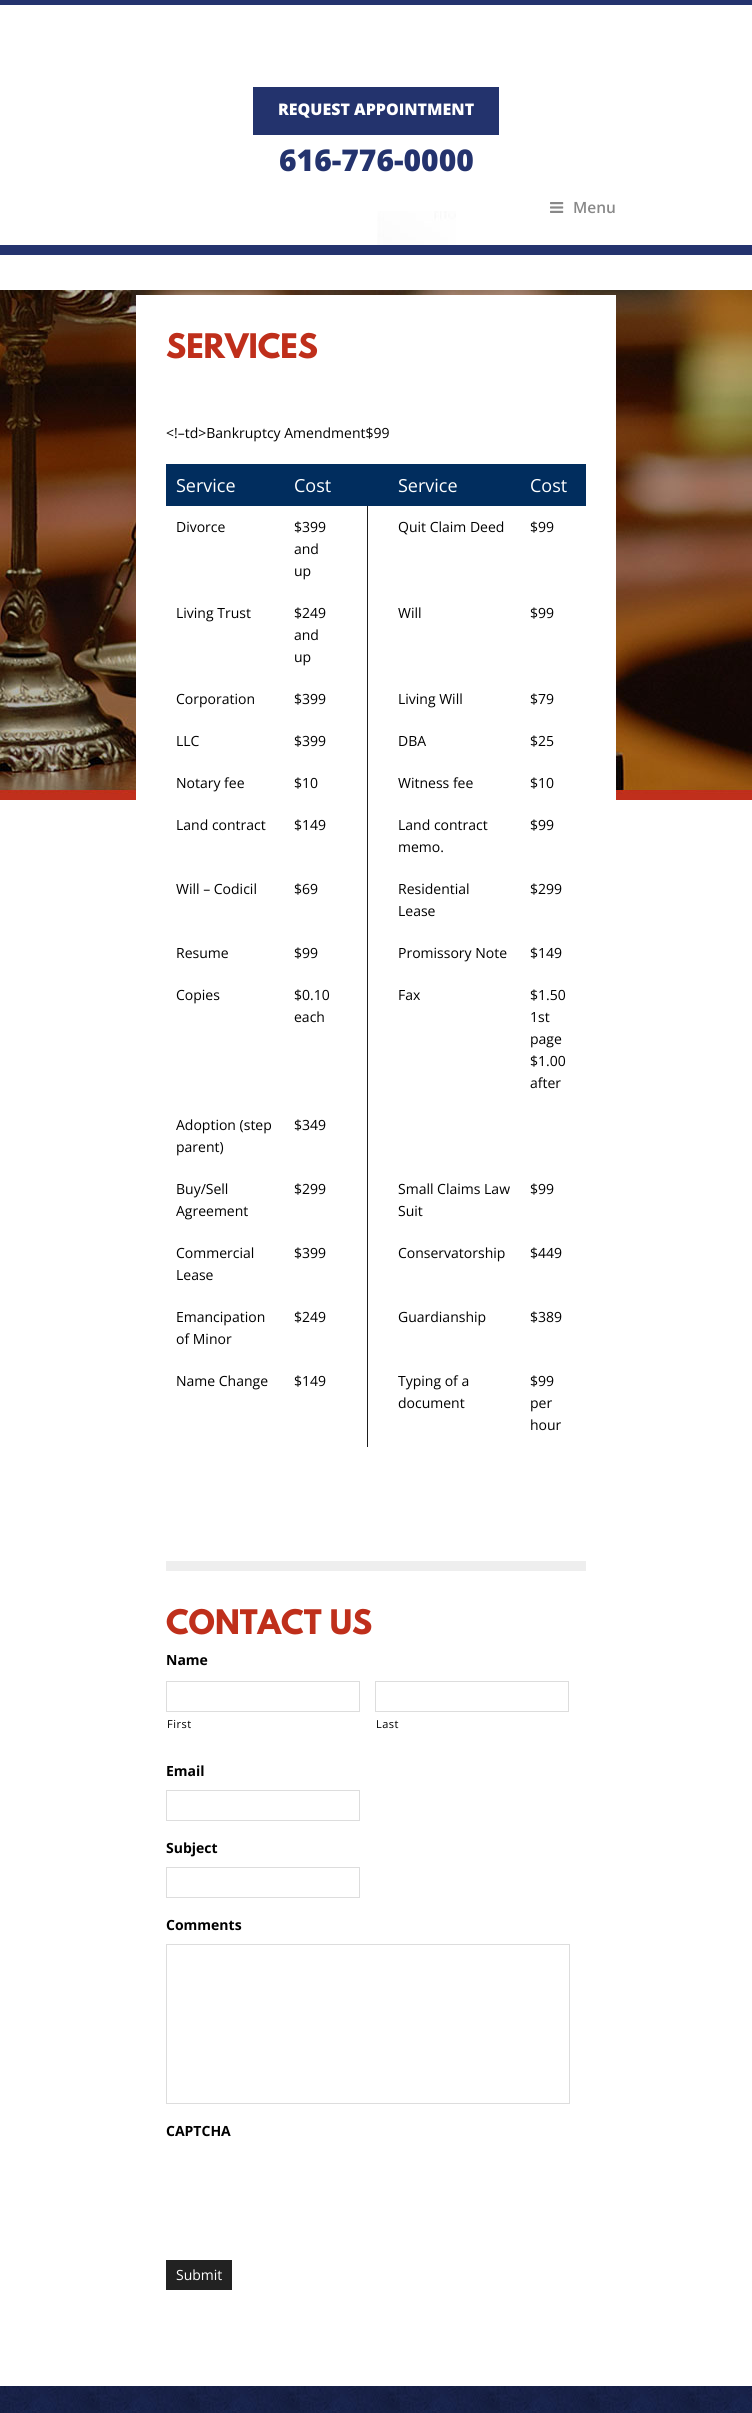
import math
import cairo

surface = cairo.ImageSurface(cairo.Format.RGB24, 752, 2413)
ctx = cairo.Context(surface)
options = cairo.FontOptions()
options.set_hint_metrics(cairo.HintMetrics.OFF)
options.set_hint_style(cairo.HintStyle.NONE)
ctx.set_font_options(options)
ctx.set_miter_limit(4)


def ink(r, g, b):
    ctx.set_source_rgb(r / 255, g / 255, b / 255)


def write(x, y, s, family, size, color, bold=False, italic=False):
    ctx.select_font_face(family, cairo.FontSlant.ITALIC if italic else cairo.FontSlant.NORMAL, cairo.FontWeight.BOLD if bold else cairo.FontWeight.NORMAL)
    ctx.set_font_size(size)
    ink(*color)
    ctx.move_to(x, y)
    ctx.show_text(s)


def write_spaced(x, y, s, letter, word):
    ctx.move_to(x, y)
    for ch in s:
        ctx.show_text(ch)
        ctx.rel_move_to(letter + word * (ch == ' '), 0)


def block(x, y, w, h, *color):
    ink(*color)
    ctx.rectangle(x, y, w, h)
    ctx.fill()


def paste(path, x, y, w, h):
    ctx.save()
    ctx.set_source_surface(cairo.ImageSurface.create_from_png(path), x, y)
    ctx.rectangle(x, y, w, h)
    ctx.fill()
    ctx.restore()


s1 = dict(family="Open Sans ExtraBold", size=16, color=(255, 255, 255))
s2 = dict(family="Open Sans ExtraBold", size=30, color=(36, 51, 110))
s3 = dict(family="Open Sans SemiBold", size=15.5, color=(136, 136, 136))
s4 = dict(family="League Spartan", size=30, color=(191, 47, 27), bold=True)
s5 = dict(family="Open Sans", size=14, color=(0, 0, 0))
s6 = dict(family="Open Sans", size=18, color=(255, 255, 255))
s7 = dict(family="Open Sans", size=14, color=(0, 0, 0), bold=True)
s8 = dict(family="Open Sans", size=14, color=(255, 255, 255))

ink(255, 255, 255)
ctx.paint()
paste("pic1.png", 0, 290, 752, 510)
paste("pic2.png", 377, 211, 79, 34)
block(0, 0, 752, 5, 36, 51, 110)
block(0, 245, 752, 10, 36, 51, 110)
block(253, 87, 246, 48, 35, 51, 109)
write(278, 115, "REQUEST APPOINTMENT", **s1)
write(279, 171, "616-776-0000", **s2)
paste("pic3.png", 550, 202, 14, 11)
write(573, 213, "Menu", **s3)
block(136, 295, 480, 505, 255, 255, 255)
write(166, 358, "SERVICES", **s4)
write(166, 438, "<!–td>Bankruptcy Amendment$99", **s5)
block(166, 464, 420, 42, 1, 45, 94)
write(176, 492, "Service", **s6)
write(294, 492, "Cost", **s6)
write(398, 492, "Service", **s6)
write(530, 492, "Cost", **s6)
write(176, 532, "Divorce", **s5)
write(294, 532, "$399", **s5)
write(294, 554, "and", **s5)
write(294, 576, "up", **s5)
write(398, 532, "Quit Claim Deed", **s5)
write(530, 532, "$99", **s5)
write(176, 618, "Living Trust", **s5)
write(294, 618, "$249", **s5)
write(294, 640, "and", **s5)
write(294, 662, "up", **s5)
write(398, 618, "Will", **s5)
write(530, 618, "$99", **s5)
write(176, 704, "Corporation", **s5)
write(294, 704, "$399", **s5)
write(398, 704, "Living Will", **s5)
write(530, 704, "$79", **s5)
write(176, 746, "LLC", **s5)
write(294, 746, "$399", **s5)
write(398, 746, "DBA", **s5)
write(530, 746, "$25", **s5)
write(176, 788, "Notary fee", **s5)
write(294, 788, "$10", **s5)
write(398, 788, "Witness fee", **s5)
write(530, 788, "$10", **s5)
write(176, 830, "Land contract", **s5)
write(294, 830, "$149", **s5)
write(398, 830, "Land contract", **s5)
write(398, 852, "memo.", **s5)
write(530, 830, "$99", **s5)
write(176, 894, "Will – Codicil", **s5)
write(294, 894, "$69", **s5)
write(398, 894, "Residential", **s5)
write(398, 916, "Lease", **s5)
write(530, 894, "$299", **s5)
write(176, 958, "Resume", **s5)
write(294, 958, "$99", **s5)
write(398, 958, "Promissory Note", **s5)
write(530, 958, "$149", **s5)
write(176, 1000, "Copies", **s5)
write(294, 1000, "$0.10", **s5)
write(294, 1022, "each", **s5)
write(398, 1000, "Fax", **s5)
write(530, 1000, "$1.50", **s5)
write(530, 1022, "1st", **s5)
write(530, 1044, "page", **s5)
write(530, 1066, "$1.00", **s5)
write(530, 1088, "after", **s5)
write(176, 1130, "Adoption (step", **s5)
write(176, 1152, "parent)", **s5)
write(294, 1130, "$349", **s5)
write(176, 1194, "Buy/Sell", **s5)
write(176, 1216, "Agreement", **s5)
write(294, 1194, "$299", **s5)
write(398, 1194, "Small Claims Law", **s5)
write(398, 1216, "Suit", **s5)
write(530, 1194, "$99", **s5)
write(176, 1258, "Commercial", **s5)
write(176, 1280, "Lease", **s5)
write(294, 1258, "$399", **s5)
write(398, 1258, "Conservatorship", **s5)
write(530, 1258, "$449", **s5)
write(176, 1322, "Emancipation", **s5)
write(176, 1344, "of Minor", **s5)
write(294, 1322, "$249", **s5)
write(398, 1322, "Guardianship", **s5)
write(530, 1322, "$389", **s5)
write(176, 1386, "Name Change", **s5)
block(367, 506, 1, 941, 30, 30, 30)
write(294, 1386, "$149", **s5)
write(398, 1386, "Typing of a", **s5)
write(398, 1408, "document", **s5)
write(530, 1386, "$99", **s5)
write(530, 1408, "per", **s5)
write(530, 1430, "hour", **s5)
block(166, 1561, 420, 10, 238, 238, 238)
write(166, 1634, "CONTACT US", **s4)
write(166, 1665, "Name", **s7)
ctx.rectangle(166.5, 1681.5, 193, 30)
ink(221, 221, 221)
ctx.set_line_width(1)
ctx.stroke()
ctx.select_font_face("Open Sans")
ctx.set_font_size(11)
ink(0, 0, 0)
write_spaced(167, 1728, "First", 0.5, 0)
ctx.rectangle(375.5, 1681.5, 193, 30)
ink(221, 221, 221)
ctx.stroke()
ink(0, 0, 0)
write_spaced(376, 1728, "Last", 0.5, 0)
write(166, 1776, "Email", **s7)
ctx.rectangle(166.5, 1790.5, 193, 30)
ink(221, 221, 221)
ctx.stroke()
write(166, 1853, "Subject", **s7)
ctx.rectangle(166.5, 1867.5, 193, 30)
ink(221, 221, 221)
ctx.stroke()
write(166, 1930, "Comments", **s7)
ctx.rectangle(166.5, 1944.5, 403, 159)
ink(221, 221, 221)
ctx.stroke()
write(166, 2136, "CAPTCHA", **s7)
block(166, 2260, 66, 30, 34, 34, 34)
write(176, 2280, "Submit", **s8)
paste("pic4.png", 0, 2386, 752, 27)
surface.write_to_png("screenshot.png")
